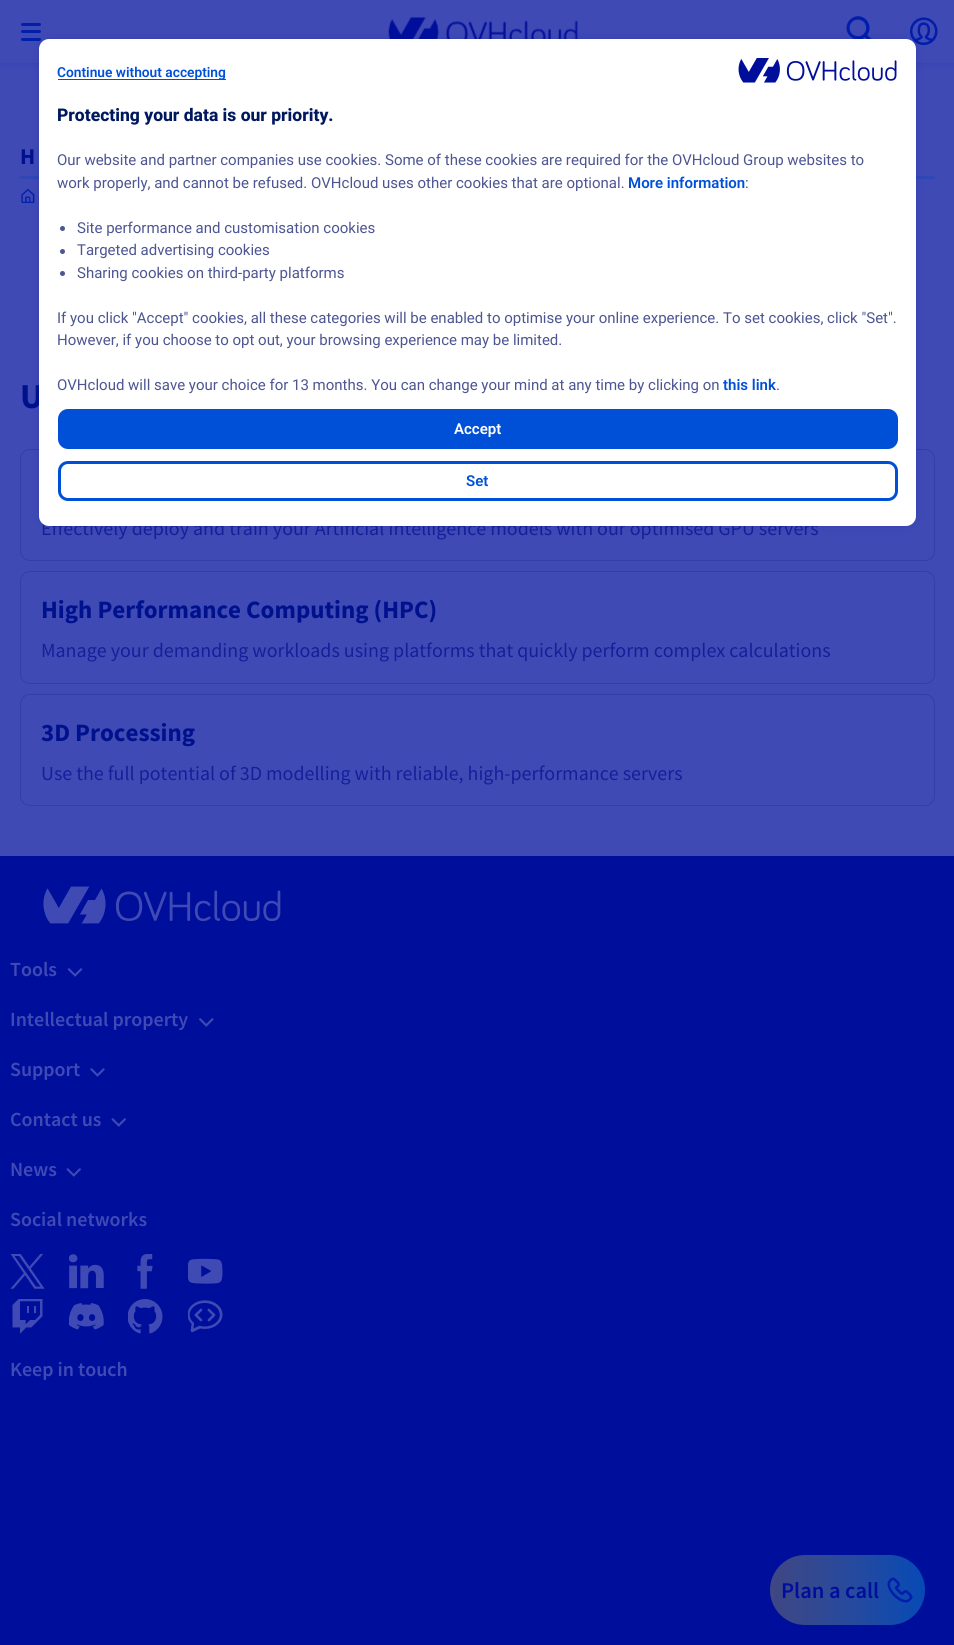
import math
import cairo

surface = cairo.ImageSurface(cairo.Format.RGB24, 954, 1645)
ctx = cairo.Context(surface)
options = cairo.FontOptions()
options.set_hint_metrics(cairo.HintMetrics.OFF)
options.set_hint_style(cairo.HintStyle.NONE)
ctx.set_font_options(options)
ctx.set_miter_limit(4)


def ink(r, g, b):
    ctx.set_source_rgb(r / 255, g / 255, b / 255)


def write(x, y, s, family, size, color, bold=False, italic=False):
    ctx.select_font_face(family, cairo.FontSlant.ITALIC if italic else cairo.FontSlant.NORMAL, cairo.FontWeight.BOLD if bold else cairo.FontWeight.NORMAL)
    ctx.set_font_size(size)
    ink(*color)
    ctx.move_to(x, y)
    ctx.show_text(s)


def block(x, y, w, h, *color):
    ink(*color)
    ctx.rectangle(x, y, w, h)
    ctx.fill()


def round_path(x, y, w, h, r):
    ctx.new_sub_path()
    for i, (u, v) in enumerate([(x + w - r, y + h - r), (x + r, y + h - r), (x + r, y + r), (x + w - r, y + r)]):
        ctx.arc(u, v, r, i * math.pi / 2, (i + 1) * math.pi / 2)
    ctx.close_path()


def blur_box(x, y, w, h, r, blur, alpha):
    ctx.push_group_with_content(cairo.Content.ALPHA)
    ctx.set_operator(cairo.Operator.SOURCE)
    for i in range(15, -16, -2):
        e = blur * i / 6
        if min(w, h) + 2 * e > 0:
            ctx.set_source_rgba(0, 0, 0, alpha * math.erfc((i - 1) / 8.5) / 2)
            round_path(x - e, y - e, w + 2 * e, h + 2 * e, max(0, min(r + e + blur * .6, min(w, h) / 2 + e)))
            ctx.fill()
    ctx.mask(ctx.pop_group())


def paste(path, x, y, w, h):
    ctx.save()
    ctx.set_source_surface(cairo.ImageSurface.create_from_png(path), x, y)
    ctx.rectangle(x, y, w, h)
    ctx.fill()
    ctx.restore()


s1 = dict(family="Source Sans Pro", size=35, color=(0, 17, 141), bold=True)
s2 = dict(family="Source Sans Pro", size=20, color=(19, 32, 154))
s3 = dict(family="Roboto SemiBold", size=13.75, color=(0, 80, 215))
s4 = dict(family="Roboto SemiBold", size=15, color=(255, 255, 255))
s5 = dict(family="Roboto SemiBold", size=15, color=(0, 80, 215))
s6 = dict(family="Roboto ExtraBold", size=17.5, color=(0, 24, 94))
s7 = dict(family="Roboto", size=15, color=(77, 85, 146))
s8 = dict(family="Source Sans Pro", size=22.5, color=(0, 17, 141), bold=True)
s9 = dict(family="Source Sans Pro", size=25, color=(0, 17, 141), bold=True)
s10 = dict(family="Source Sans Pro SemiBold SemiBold", size=22.5, color=(0, 14, 156))
s11 = dict(family="Source Sans Pro SemiBold SemiBold", size=20, color=(64, 74, 181))

ink(64, 74, 181)
ctx.paint()
ink(0, 14, 157)
blur_box(0, 0, 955, 63, 0, 4, 0.2)
block(0, 0, 954, 63, 64, 74, 181)
ink(0, 31, 171)
round_path(21, 30, 20, 3, 1.5)
ctx.fill()
round_path(21, 38, 20, 3, 1.5)
ctx.fill()
paste("pic2.png", 388, 17, 190, 22)
paste("pic3.png", 909, 17, 29, 29)
paste("pic4.png", 846, 16, 26, 23)
block(20, 176, 915, 3, 48, 71, 181)
paste("pic5.png", 21, 188, 14, 16)
round_path(20.5, 449.5, 914, 111, 9.5)
ink(51, 62, 168)
ctx.set_line_width(1)
ctx.stroke()
ink(0, 14, 156)
blur_box(39, 39, 877, 487, 10, 4, 0.2)
write(20, 408, "U", **s1)
write(41, 535, "Effectively deploy and train your Artificial Intelligence models with our optimised GPU servers", **s2)
ink(255, 255, 255)
round_path(39, 39, 877, 487, 10)
ctx.fill()
block(58, 79, 168, 1, 0, 80, 215)
write(57, 77, "Continue without accepting", **s3)
round_path(59.5, 410.5, 837, 37, 8.5)
ctx.fill_preserve()
ctx.set_line_width(3)
ctx.stroke()
write(454, 434, "Accept", **s4)
round_path(59.5, 462.5, 837, 37, 8.5)
ink(0, 80, 215)
ctx.stroke()
write(466, 486, "Set", **s5)
paste("pic1.png", 738, 58, 159, 25)
write(57, 121, "Protecting your data is our priority.", **s6)
write(57, 165, "Our website and partner companies use cookies. Some of these cookies are required for the OVHcloud Group websites to", **s7)
write(57, 188, "work properly, and cannot be refused. OVHcloud uses other cookies that are optional.", **s7)
write(628, 188, "More information", **s5)
write(745, 188, ":", **s7)
ctx.new_path()
ctx.arc(62.5, 228.5, 2.5, 0, 2 * math.pi)
ctx.fill()
write(77, 233, "Site performance and customisation cookies", **s7)
ctx.new_path()
ctx.arc(62.5, 251.5, 2.5, 0, 2 * math.pi)
ctx.fill()
write(77, 255, "Targeted advertising cookies", **s7)
ctx.new_path()
ctx.arc(62.5, 273.5, 2.5, 0, 2 * math.pi)
ctx.fill()
write(77, 278, "Sharing cookies on third-party platforms", **s7)
write(57, 323, "If you click \"Accept\" cookies, all these categories will be enabled to optimise your online experience. To set cookies, click \"Set\".", **s7)
write(57, 345, "However, if you choose to opt out, your browsing experience may be limited.", **s7)
write(57, 390, "OVHcloud will save your choice for 13 months. You can change your mind at any time by clicking on", **s7)
write(723, 390, "this link", **s5)
write(776, 390, ".", **s7)
ink(0, 31, 171)
round_path(21, 23, 20, 3, 1.5)
ctx.fill()
write(20, 164, "H", **s8)
round_path(20.5, 571.5, 914, 112, 9.5)
ink(51, 62, 168)
ctx.set_line_width(1)
ctx.stroke()
write(41, 618, "High Performance Computing (HPC)", **s9)
write(41, 657, "Manage your demanding workloads using platforms that quickly perform complex calculations", **s2)
round_path(20.5, 694.5, 914, 111, 9.5)
ink(51, 62, 168)
ctx.stroke()
write(41, 741, "3D Processing", **s9)
write(41, 780, "Use the full potential of 3D modelling with reliable, high-performance servers", **s2)
block(0, 856, 954, 789, 0, 14, 156)
gradient = cairo.LinearGradient(770, 1590, 925, 1590)
gradient.add_color_stop_rgba(0, 0.251, 0.278, 0.514, 1)
gradient.add_color_stop_rgba(0.54, 0.149, 0.29, 0.62, 1)
gradient.add_color_stop_rgba(1, 0.024, 0.29, 0.71, 1)
ctx.set_source(gradient)
round_path(770, 1555, 155, 70, 35)
ctx.fill()
write(781, 1598, "Plan a call", **s10)
paste("pic6.png", 887, 1577, 26, 26)
paste("pic7.png", 43, 886, 238, 38)
write(10, 976, "Tools", **s11)
paste("pic8.png", 67, 968, 16, 9)
write(10, 1026, "Intellectual property", **s11)
paste("pic9.png", 199, 1018, 15, 9)
write(10, 1076, "Support", **s11)
paste("pic10.png", 90, 1068, 15, 9)
write(10, 1126, "Contact us", **s11)
paste("pic11.png", 111, 1118, 15, 9)
write(10, 1176, "News", **s11)
paste("pic11.png", 66, 1168, 15, 9)
write(10, 1226, "Social networks", **s11)
paste("pic12.png", 10, 1254, 35, 35)
paste("pic13.png", 69, 1254, 35, 35)
paste("pic14.png", 137, 1254, 16, 35)
paste("pic15.png", 188, 1258, 35, 26)
paste("pic16.png", 12, 1299, 31, 35)
paste("pic17.png", 69, 1303, 35, 27)
paste("pic18.png", 128, 1299, 35, 35)
paste("pic19.png", 188, 1300, 35, 33)
write(10, 1376, "Keep in touch", **s11)
surface.write_to_png("screenshot.png")
